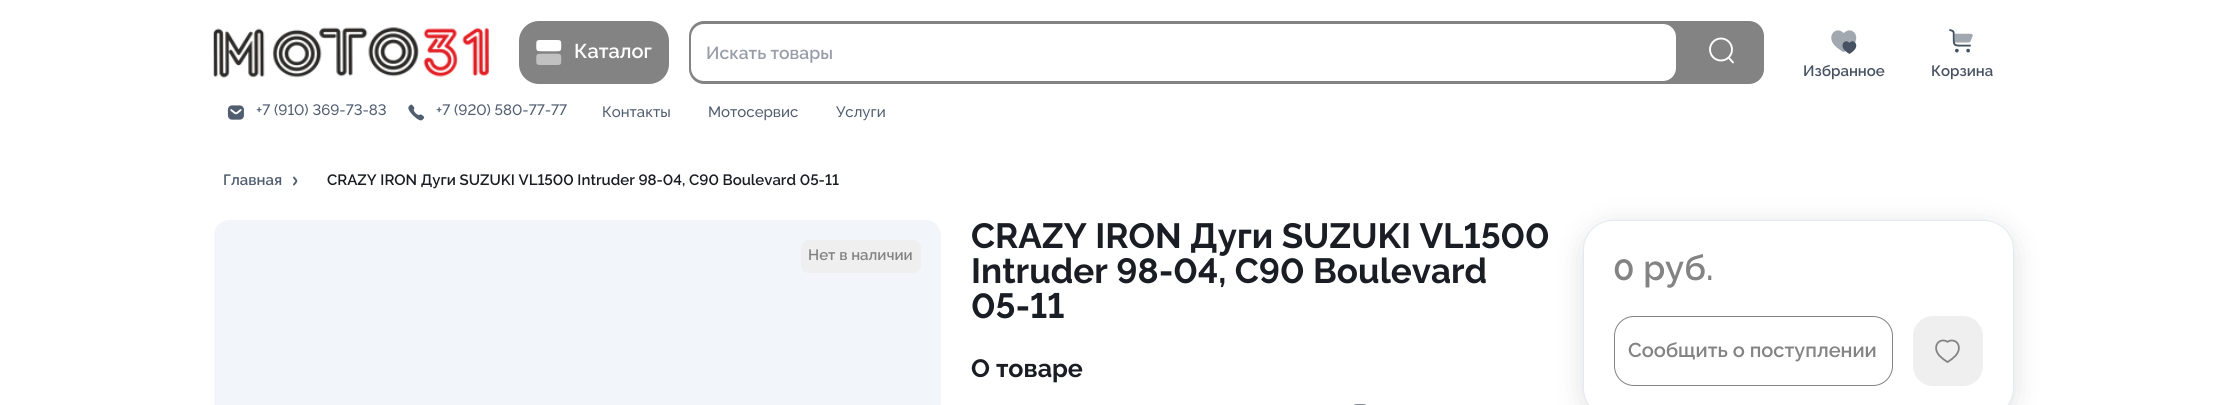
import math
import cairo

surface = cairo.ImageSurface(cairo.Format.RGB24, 2226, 405)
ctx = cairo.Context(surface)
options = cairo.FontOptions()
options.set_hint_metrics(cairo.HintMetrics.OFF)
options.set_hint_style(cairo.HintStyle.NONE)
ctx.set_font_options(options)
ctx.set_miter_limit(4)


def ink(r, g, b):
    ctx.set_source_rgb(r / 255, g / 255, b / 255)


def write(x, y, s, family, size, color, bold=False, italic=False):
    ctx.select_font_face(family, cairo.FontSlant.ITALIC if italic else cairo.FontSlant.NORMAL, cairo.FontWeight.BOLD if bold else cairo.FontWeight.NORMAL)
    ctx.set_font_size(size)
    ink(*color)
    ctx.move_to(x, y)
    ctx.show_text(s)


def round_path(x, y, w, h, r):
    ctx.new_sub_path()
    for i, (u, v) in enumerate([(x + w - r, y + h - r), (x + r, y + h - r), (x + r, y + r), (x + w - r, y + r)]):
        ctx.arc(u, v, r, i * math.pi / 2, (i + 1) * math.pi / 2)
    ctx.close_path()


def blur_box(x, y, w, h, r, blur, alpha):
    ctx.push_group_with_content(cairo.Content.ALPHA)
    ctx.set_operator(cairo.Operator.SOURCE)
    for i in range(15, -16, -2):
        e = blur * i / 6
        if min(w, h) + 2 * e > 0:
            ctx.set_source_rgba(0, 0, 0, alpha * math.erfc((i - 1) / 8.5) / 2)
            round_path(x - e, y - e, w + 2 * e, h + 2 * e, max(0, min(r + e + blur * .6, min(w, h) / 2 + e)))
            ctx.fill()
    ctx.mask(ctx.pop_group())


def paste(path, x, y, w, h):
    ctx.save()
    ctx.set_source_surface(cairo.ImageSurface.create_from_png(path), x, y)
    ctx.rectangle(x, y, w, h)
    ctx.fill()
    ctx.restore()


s1 = dict(family="Raleway SemiBold", size=20, color=(255, 255, 255))
s2 = dict(family="Raleway SemiBold", size=17.5, color=(151, 158, 169))
s3 = dict(family="Raleway SemiBold", size=15, color=(70, 81, 97))
s4 = dict(family="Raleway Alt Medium", size=15, color=(81, 94, 112))
s5 = dict(family="Raleway Medium", size=15, color=(81, 94, 112))
s6 = dict(family="Raleway SemiBold", size=15, color=(81, 94, 112))
s7 = dict(family="Raleway Alt SemiBold", size=15, color=(26, 30, 36))
s8 = dict(family="Raleway SemiBold", size=15, color=(131, 131, 131))
s9 = dict(family="Raleway Alt", size=35, color=(26, 30, 36), bold=True)
s10 = dict(family="Raleway", size=25, color=(26, 30, 36), bold=True)
s11 = dict(family="Raleway SemiBold", size=35, color=(131, 131, 131))
s12 = dict(family="Raleway SemiBold", size=20, color=(131, 131, 131))

ink(255, 255, 255)
ctx.paint()
paste("pic1.png", 213, 27, 276, 51)
ink(131, 131, 131)
round_path(519, 21, 150, 63, 20)
ctx.fill()
paste("pic2.png", 536, 40, 26, 25)
write(574, 58, "Каталог", **s1)
ink(131, 131, 131)
round_path(689, 21, 1075, 63, 15)
ctx.fill()
ink(255, 255, 255)
round_path(691, 24, 985, 57, 13)
ctx.fill()
write(706, 59, "Искать товары", **s2)
ctx.new_path()
ctx.arc(1721, 49.5, 11, 0, 2 * math.pi)
ink(255, 255, 255)
ctx.set_line_width(1.9)
ctx.stroke()
ctx.new_path()
ctx.move_to(1729, 58)
ctx.line_to(1733, 62.5)
ctx.set_line_cap(cairo.LineCap.ROUND)
ctx.set_line_join(cairo.LineJoin.ROUND)
ctx.stroke()
paste("pic3.png", 1831, 30, 26, 24)
write(1803, 76, "Избранное", **s3)
paste("pic4.png", 1949, 29, 24, 24)
write(1931, 76, "Корзина", **s3)
paste("pic5.png", 227, 105, 17, 15)
write(256, 115, "+7 (910) 369-73-83", **s4)
paste("pic6.png", 408, 104, 17, 17)
write(436, 115, "+7 (920) 580-77-77", **s4)
write(602, 117, "Контакты", **s5)
write(708, 117, "Мотосервис", **s5)
write(836, 117, "Услуги", **s5)
write(223, 185, "Главная", **s6)
paste("pic7.png", 293, 176, 5, 10)
write(327, 185, "CRAZY IRON Дуги SUZUKI VL1500 Intruder 98-04, C90 Boulevard 05-11", **s7)
ink(242, 245, 250)
round_path(214, 220, 727, 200, 15)
ctx.fill()
ink(239, 239, 239)
round_path(801, 240, 120, 33, 8)
ctx.fill()
write(808, 260, "Нет в наличии", **s8)
write(971, 248, "CRAZY IRON Дуги SUZUKI VL1500", **s9)
write(971, 283, "Intruder 98-04, C90 Boulevard", **s9)
write(971, 318, "05-11", **s9)
write(971, 377, "О товаре", **s10)
paste("pic8.png", 1353, 404, 14, 1)
ink(0, 0, 0)
blur_box(1583, 225, 431, 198, 30, 15, 0.12)
ink(255, 255, 255)
round_path(1583.5, 220.5, 430, 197, 29.5)
ctx.fill_preserve()
ink(228, 233, 240)
ctx.set_line_width(1)
ctx.set_line_cap(cairo.LineCap.BUTT)
ctx.set_line_join(cairo.LineJoin.MITER)
ctx.stroke()
write(1613, 280, "0 руб.", **s11)
round_path(1614.5, 316.5, 278, 69, 19.5)
ctx.stroke()
write(1628, 357, "Сообщить о поступлении", **s12)
ink(239, 239, 239)
round_path(1913, 316, 70, 70, 20)
ctx.fill()
paste("pic9.png", 1935, 339, 25, 24)
surface.write_to_png("screenshot.png")
